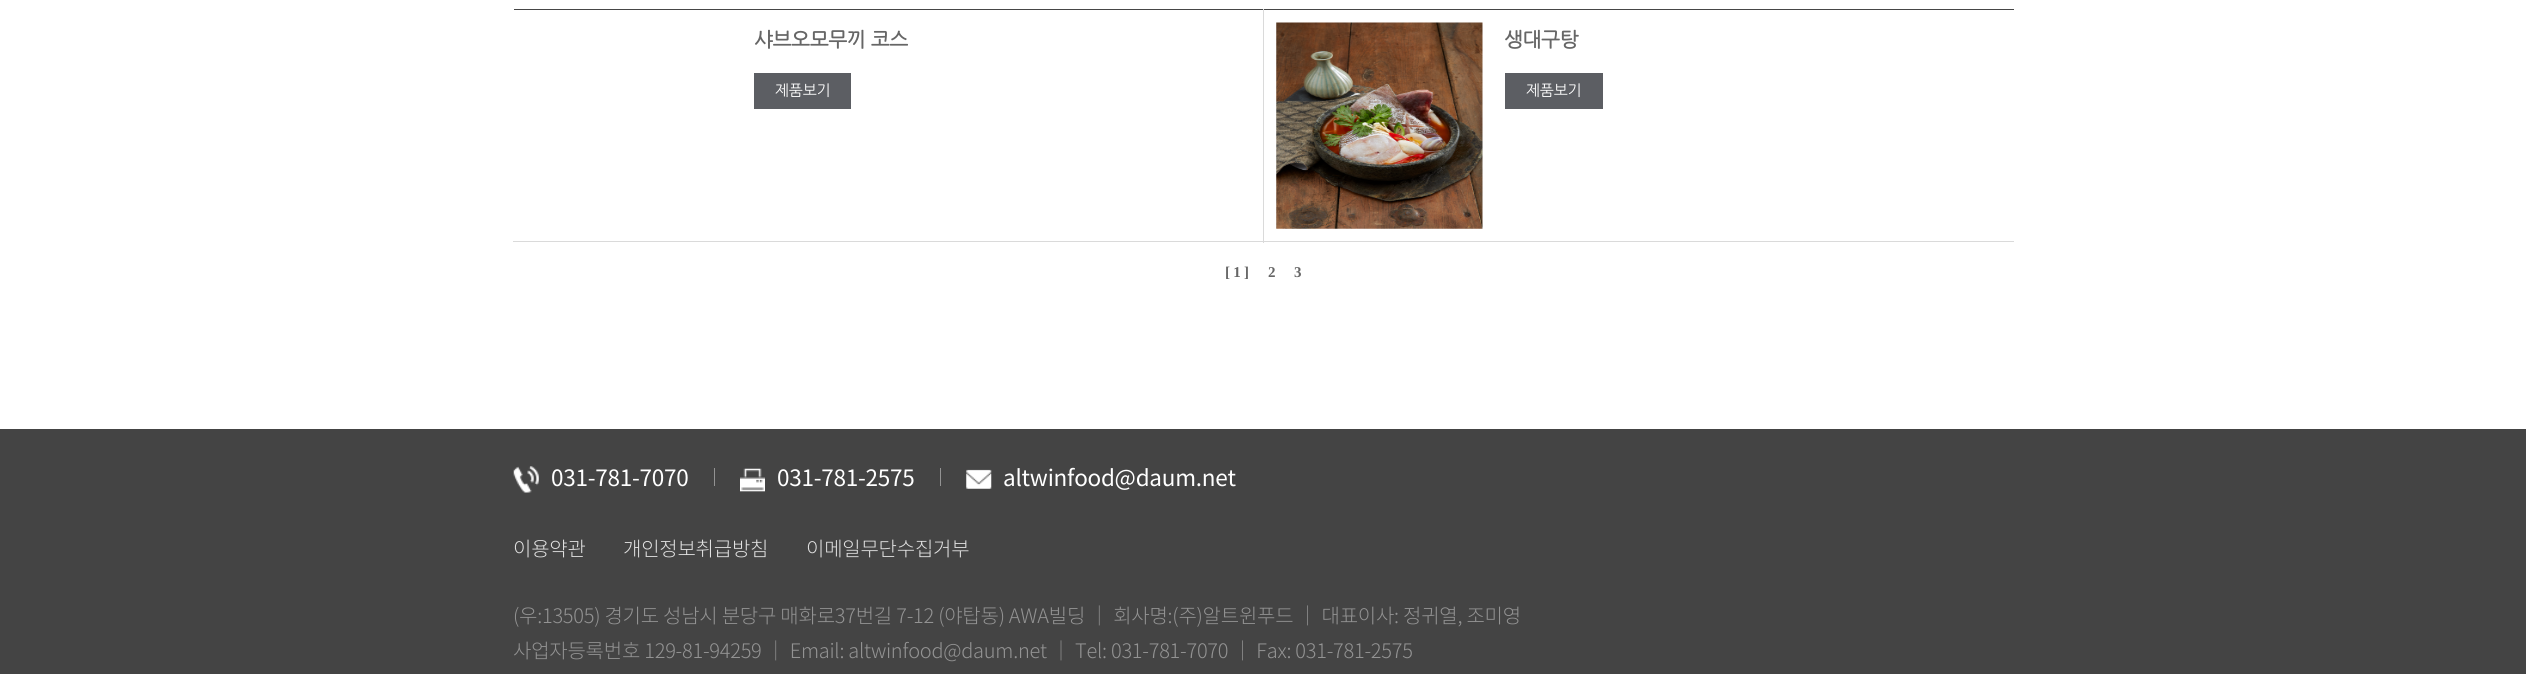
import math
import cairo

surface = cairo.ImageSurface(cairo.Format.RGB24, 2526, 674)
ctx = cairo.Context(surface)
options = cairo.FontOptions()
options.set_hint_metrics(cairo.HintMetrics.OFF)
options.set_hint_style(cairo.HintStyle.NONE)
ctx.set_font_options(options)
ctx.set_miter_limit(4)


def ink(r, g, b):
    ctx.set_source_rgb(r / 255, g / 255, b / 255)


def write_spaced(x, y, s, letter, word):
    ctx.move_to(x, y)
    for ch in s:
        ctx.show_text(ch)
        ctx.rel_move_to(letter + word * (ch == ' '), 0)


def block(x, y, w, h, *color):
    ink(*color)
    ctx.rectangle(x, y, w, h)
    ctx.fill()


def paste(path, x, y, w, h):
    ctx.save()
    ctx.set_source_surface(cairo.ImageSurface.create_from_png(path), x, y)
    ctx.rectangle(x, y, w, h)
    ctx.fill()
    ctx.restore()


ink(255, 255, 255)
ctx.paint()
block(514, 9, 1500, 1, 70, 70, 70)
block(1263, 241, 751, 1, 218, 218, 218)
block(1263, 9, 1, 234, 218, 218, 218)
block(513, 241, 751, 1, 218, 218, 218)
ctx.select_font_face("NanumGothic", cairo.FontSlant.NORMAL, cairo.FontWeight.BOLD)
ctx.set_font_size(20)
ink(102, 102, 102)
write_spaced(754, 46, "샤브오모무끼 코스", -0.25, 0)
block(754, 73, 97, 36, 92, 94, 99)
ctx.select_font_face("NanumGothic")
ctx.set_font_size(15)
ink(255, 255, 255)
write_spaced(775, 95, "제품보기", -0.25, 0)
paste("pic1.png", 1276, 22, 207, 207)
ctx.select_font_face("NanumGothic", cairo.FontSlant.NORMAL, cairo.FontWeight.BOLD)
ctx.set_font_size(20)
ink(102, 102, 102)
write_spaced(1504, 46, "생대구탕", -0.25, 0)
block(1505, 73, 98, 36, 92, 94, 99)
ctx.select_font_face("NanumGothic")
ctx.set_font_size(15)
ink(255, 255, 255)
write_spaced(1526, 95, "제품보기", -0.25, 0)
ctx.select_font_face("Liberation Serif", cairo.FontSlant.NORMAL, cairo.FontWeight.BOLD)
ink(102, 102, 102)
write_spaced(1225, 277, "[ 1 ]", -0.25, 0)
write_spaced(1268, 277, "2", -0.25, 0)
write_spaced(1294, 277, "3", -0.25, 0)
block(0, 429, 2526, 245, 68, 68, 68)
paste("pic2.png", 513, 466, 26, 27)
ctx.select_font_face("Noto Sans KR")
ctx.set_font_size(22.5)
ink(255, 255, 255)
write_spaced(551, 486, "031-781-7070", -0.25, 0)
block(714, 468, 1, 18, 147, 147, 147)
paste("pic3.png", 740, 468, 25, 24)
ink(255, 255, 255)
write_spaced(777, 486, "031-781-2575", -0.25, 0)
block(940, 468, 1, 18, 147, 147, 147)
paste("pic4.png", 966, 469, 26, 20)
ink(255, 255, 255)
write_spaced(1003, 486, "altwinfood@daum.net", -0.25, 0)
ctx.select_font_face("Noto Sans KR Light")
ctx.set_font_size(20)
ink(226, 226, 226)
write_spaced(513, 556, "이용약관", -0.25, 0)
write_spaced(623, 556, "개인정보취급방침", -0.25, 0)
write_spaced(806, 556, "이메일무단수집거부", -0.25, 0)
ink(147, 147, 147)
write_spaced(513, 623, "(우:13505) 경기도 성남시 분당구 매화로37번길 7-12 (야탑동) AWA빌딩 ｜ 회사명:(주)알트윈푸드 ｜ 대표이사: 정귀열, 조미영", -0.25, 0)
write_spaced(513, 658, "사업자등록번호 129-81-94259 ｜ Email: altwinfood@daum.net ｜ Tel: 031-781-7070 ｜ Fax: 031-781-2575", -0.25, 0)
surface.write_to_png("screenshot.png")
